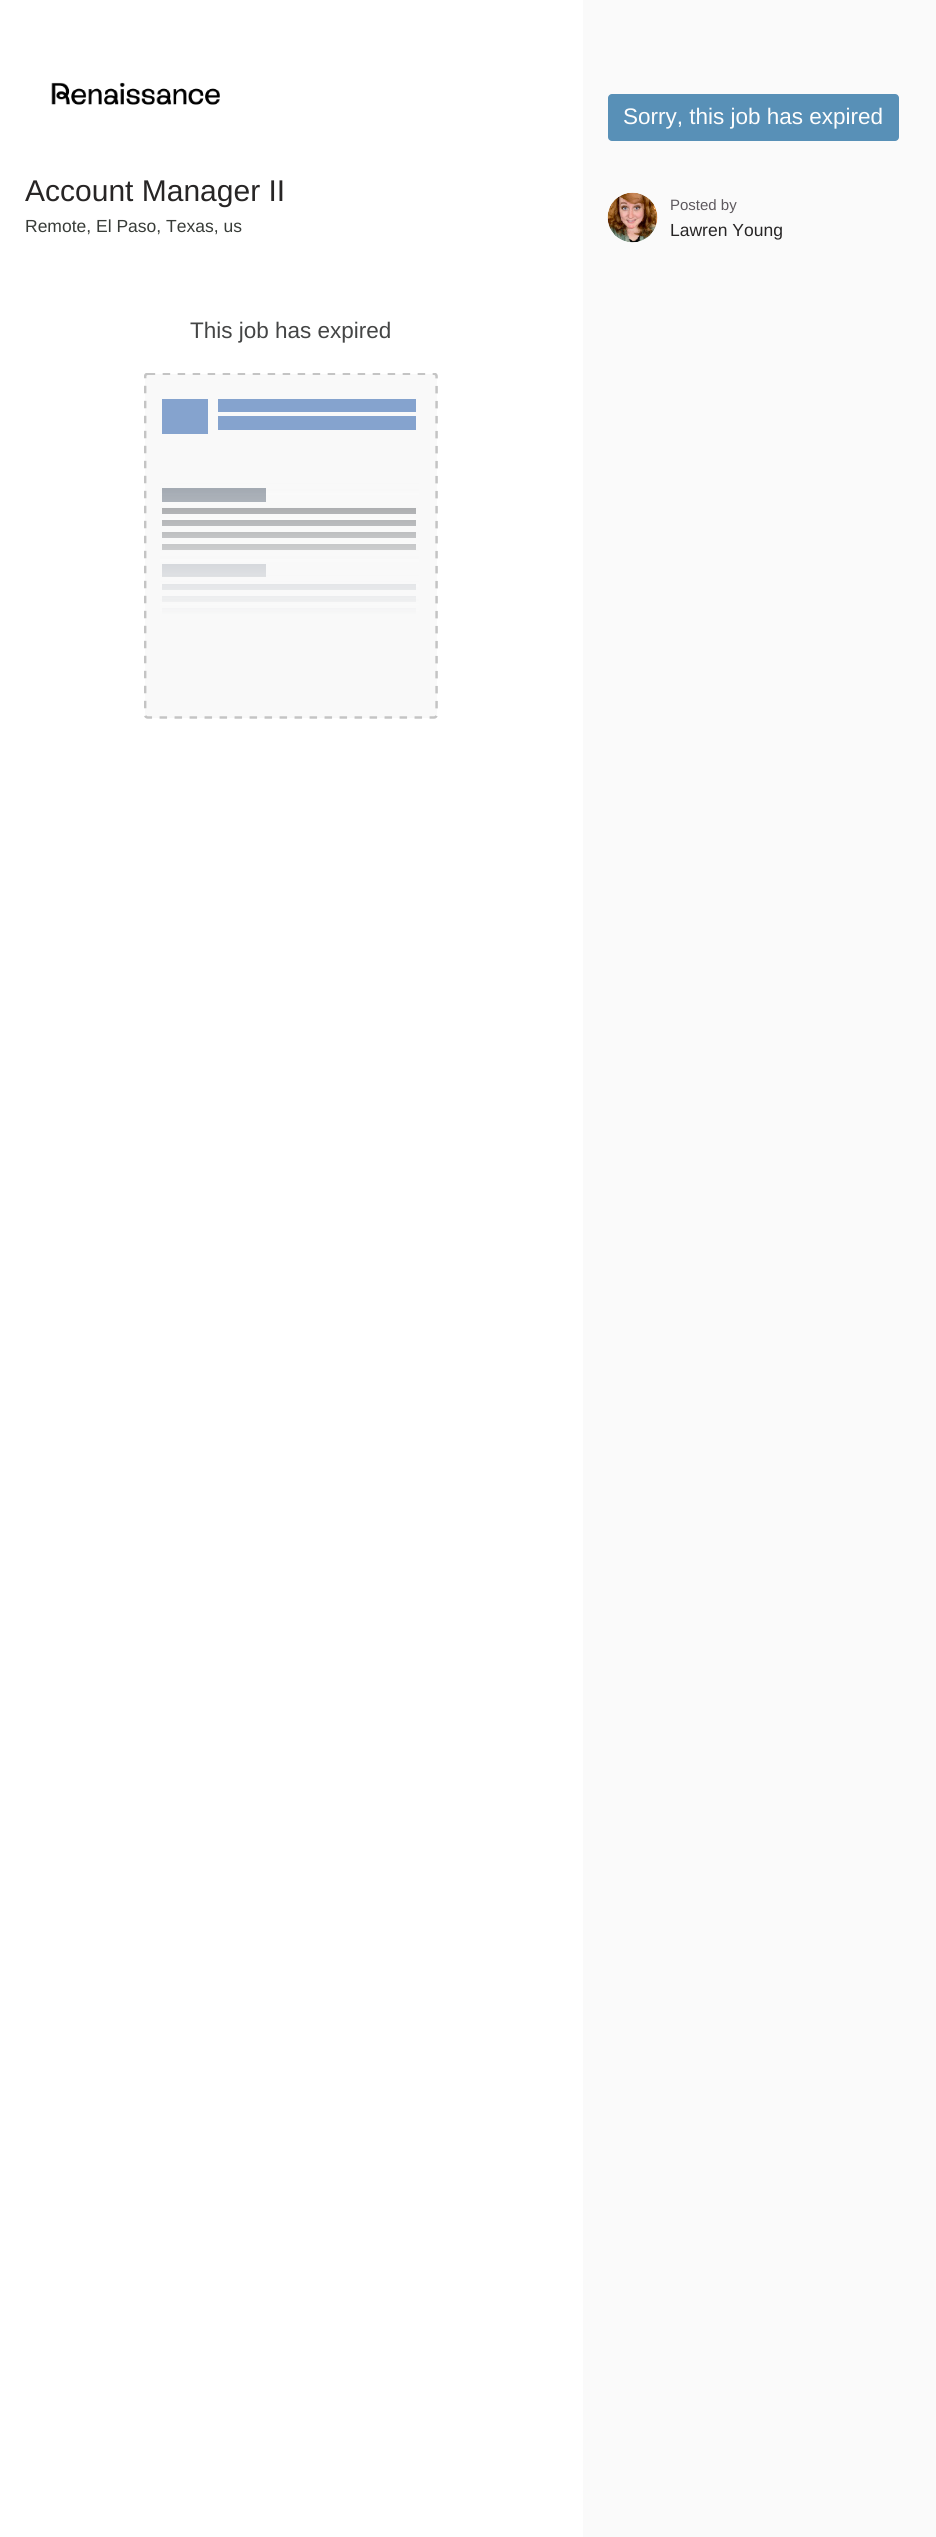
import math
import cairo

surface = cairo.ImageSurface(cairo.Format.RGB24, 936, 2537)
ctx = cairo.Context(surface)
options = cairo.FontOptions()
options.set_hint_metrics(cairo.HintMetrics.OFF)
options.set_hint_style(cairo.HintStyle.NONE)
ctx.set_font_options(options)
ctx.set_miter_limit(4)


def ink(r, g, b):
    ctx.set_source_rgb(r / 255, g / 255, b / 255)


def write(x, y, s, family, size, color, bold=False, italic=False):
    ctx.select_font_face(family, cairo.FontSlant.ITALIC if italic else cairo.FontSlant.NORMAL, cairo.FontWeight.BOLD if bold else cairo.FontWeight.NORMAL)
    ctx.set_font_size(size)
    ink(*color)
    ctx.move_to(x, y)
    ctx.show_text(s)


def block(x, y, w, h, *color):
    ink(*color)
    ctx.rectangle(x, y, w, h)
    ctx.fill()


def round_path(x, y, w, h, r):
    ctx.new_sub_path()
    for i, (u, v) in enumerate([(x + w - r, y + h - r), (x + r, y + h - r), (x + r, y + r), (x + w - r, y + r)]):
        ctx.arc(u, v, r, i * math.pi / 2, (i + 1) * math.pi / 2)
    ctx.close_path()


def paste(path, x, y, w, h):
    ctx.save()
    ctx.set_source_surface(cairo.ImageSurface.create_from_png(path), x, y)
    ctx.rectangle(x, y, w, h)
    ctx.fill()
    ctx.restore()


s1 = dict(family="Liberation Sans", size=30, color=(39, 37, 37))
s2 = dict(family="Liberation Sans", size=17.5, color=(56, 60, 56))
s3 = dict(family="Liberation Sans", size=22.5, color=(68, 69, 69))
s4 = dict(family="Liberation Sans", size=22.5, color=(253, 253, 253))
s5 = dict(family="Liberation Sans", size=15, color=(94, 89, 94))
s6 = dict(family="Liberation Sans", size=17.5, color=(39, 37, 37))

ink(255, 255, 255)
ctx.paint()
paste("pic1.png", 51, 82, 169, 23)
write(25, 201, "Account Manager II", **s1)
write(25, 232, "Remote, El Paso, Texas, us", **s2)
write(190, 338, "This job has expired", **s3)
paste("pic2.png", 144, 373, 294, 346)
block(583, 0, 353, 2537, 250, 250, 250)
ink(88, 144, 183)
round_path(608, 94, 291, 47, 4)
ctx.fill()
write(623, 124, "Sorry, this job has expired", **s4)
paste("pic3.png", 607, 192, 51, 51)
write(670, 210, "Posted by", **s5)
write(670, 236, "Lawren Young", **s6)
surface.write_to_png("screenshot.png")
